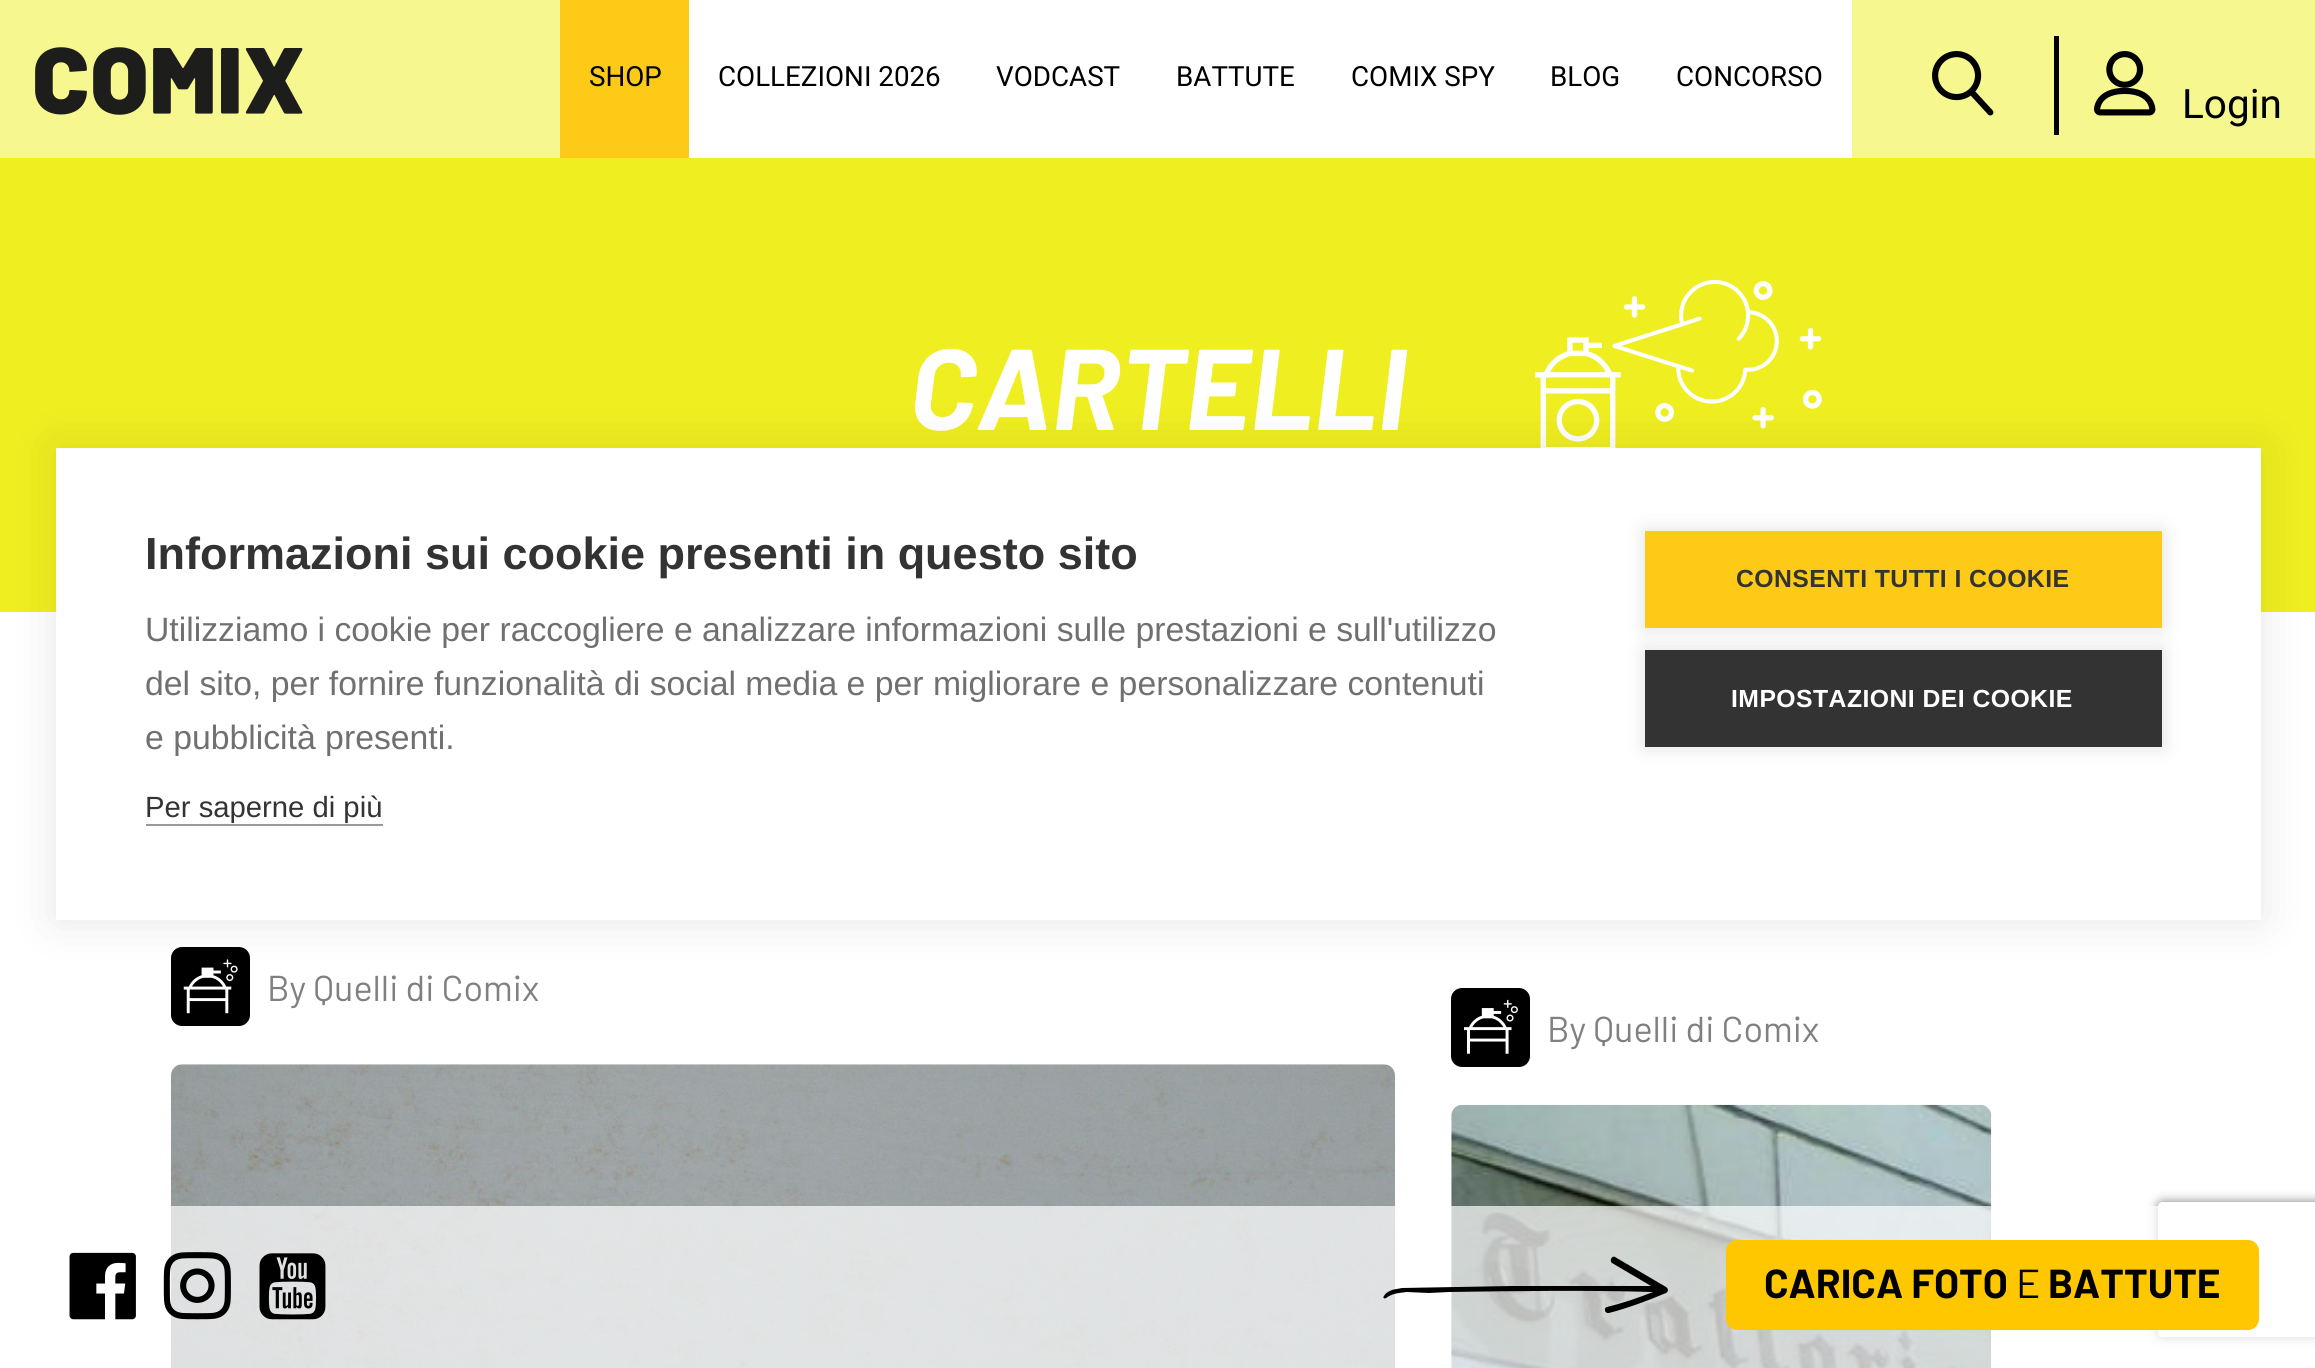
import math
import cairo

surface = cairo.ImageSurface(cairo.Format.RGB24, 2315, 1368)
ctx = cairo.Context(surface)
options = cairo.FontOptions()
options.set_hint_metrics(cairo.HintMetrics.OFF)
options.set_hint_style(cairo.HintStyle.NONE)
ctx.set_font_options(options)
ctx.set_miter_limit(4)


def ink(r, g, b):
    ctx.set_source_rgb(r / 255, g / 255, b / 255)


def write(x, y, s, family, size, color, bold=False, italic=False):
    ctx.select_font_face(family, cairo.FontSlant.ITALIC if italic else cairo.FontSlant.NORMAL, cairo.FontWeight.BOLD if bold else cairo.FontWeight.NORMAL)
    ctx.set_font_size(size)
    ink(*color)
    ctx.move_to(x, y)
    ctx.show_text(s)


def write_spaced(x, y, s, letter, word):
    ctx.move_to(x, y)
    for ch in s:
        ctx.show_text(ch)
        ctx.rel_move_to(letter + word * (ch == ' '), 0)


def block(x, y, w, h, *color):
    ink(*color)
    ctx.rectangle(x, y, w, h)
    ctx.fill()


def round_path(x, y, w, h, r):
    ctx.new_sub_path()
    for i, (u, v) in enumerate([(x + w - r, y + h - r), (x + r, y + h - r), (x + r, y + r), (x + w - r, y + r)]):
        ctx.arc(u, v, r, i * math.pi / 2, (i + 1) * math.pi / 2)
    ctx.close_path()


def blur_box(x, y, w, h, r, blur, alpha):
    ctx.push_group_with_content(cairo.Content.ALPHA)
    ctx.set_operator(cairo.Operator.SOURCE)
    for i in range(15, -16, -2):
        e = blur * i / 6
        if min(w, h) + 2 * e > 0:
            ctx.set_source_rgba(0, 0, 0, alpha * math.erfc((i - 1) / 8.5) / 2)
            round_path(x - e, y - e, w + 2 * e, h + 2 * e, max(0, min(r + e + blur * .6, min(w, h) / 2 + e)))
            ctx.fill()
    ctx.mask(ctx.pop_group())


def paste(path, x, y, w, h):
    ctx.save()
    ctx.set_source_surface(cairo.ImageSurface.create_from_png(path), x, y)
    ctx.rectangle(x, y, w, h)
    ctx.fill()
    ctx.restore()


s1 = dict(family="Roboto", size=27.75, color=(0, 0, 0))
s2 = dict(family="Roboto", size=40.5, color=(0, 0, 0))
s3 = dict(family="Barlow", size=114.75, color=(255, 255, 255), bold=True, italic=True)
s4 = dict(family="Barlow", size=36, color=(128, 128, 128))
s5 = dict(family="Barlow", size=40.5, color=(0, 0, 0), bold=True)
s6 = dict(family="Barlow", size=40.5, color=(0, 0, 0))
s7 = dict(family="Liberation Sans", size=45, color=(51, 51, 51), bold=True)
s8 = dict(family="Liberation Sans", size=33.75, color=(112, 112, 112))
s9 = dict(family="Liberation Sans", size=29.25, color=(51, 51, 51))

ink(255, 255, 255)
ctx.paint()
block(0, 0, 2315, 158, 247, 247, 144)
paste("pic1.png", 35, 47, 268, 68)
block(689, 0, 1163, 158, 255, 255, 255)
block(560, 0, 129, 158, 253, 202, 23)
write(589, 86, "SHOP", **s1)
write(718, 86, "COLLEZIONI 2026", **s1)
write(996, 86, "VODCAST", **s1)
write(1176, 86, "BATTUTE", **s1)
write(1351, 86, "COMIX SPY", **s1)
write(1550, 86, "BLOG", **s1)
write(1676, 86, "CONCORSO", **s1)
paste("pic2.png", 1932, 51, 62, 65)
block(2054, 36, 5, 99, 0, 0, 0)
paste("pic3.png", 2094, 51, 62, 65)
write(2182, 118, "Login", **s2)
block(0, 158, 2315, 454, 239, 238, 32)
write(909, 430, "CARTELLI", **s3)
paste("pic4.png", 1535, 279, 287, 169)
paste("pic5.png", 171, 947, 79, 79)
write(267, 1001, "By Quelli di Comix", **s4)
paste("pic6.png", 171, 1064, 1224, 304)
paste("pic7.png", 1451, 988, 79, 79)
write(1547, 1042, "By Quelli di Comix", **s4)
paste("pic8.png", 1451, 1104, 541, 264)
ctx.save()
ctx.set_fill_rule(cairo.FillRule.EVEN_ODD)
ctx.new_path()
ctx.move_to(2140, 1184)
ctx.line_to(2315, 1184)
ctx.line_to(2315, 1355)
ctx.line_to(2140, 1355)
ctx.close_path()
ctx.move_to(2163, 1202)
ctx.line_to(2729, 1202)
ctx.curve_to(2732, 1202, 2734, 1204, 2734, 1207)
ctx.line_to(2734, 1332)
ctx.curve_to(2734, 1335, 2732, 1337, 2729, 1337)
ctx.line_to(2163, 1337)
ctx.curve_to(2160, 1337, 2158, 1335, 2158, 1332)
ctx.line_to(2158, 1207)
ctx.curve_to(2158, 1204, 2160, 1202, 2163, 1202)
ctx.close_path()
ctx.clip()
ink(128, 128, 128)
blur_box(2158, 1202, 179, 135, 5, 5.5, 1)
ctx.restore()
ctx.set_source_rgba(1, 1, 1, 0.7)
ctx.rectangle(171, 1206, 2144, 162)
ctx.fill()
paste("pic9.png", 69, 1252, 67, 68)
paste("pic10.png", 163, 1252, 68, 68)
paste("pic11.png", 259, 1253, 67, 67)
ink(0, 0, 0)
ctx.new_path()
ctx.move_to(1510, 1286)
ctx.line_to(1402, 1288)
ctx.curve_to(1398, 1289, 1393, 1289, 1390, 1291)
ctx.curve_to(1387, 1292, 1385, 1294, 1384, 1296)
ctx.curve_to(1382, 1298, 1385, 1299, 1386, 1298)
ctx.curve_to(1393, 1293, 1399, 1293, 1407, 1292)
ctx.line_to(1429, 1293)
ctx.line_to(1449, 1292)
ctx.curve_to(1517, 1291, 1585, 1290, 1653, 1292)
ctx.curve_to(1638, 1298, 1623, 1303, 1607, 1307)
ctx.curve_to(1603, 1308, 1605, 1314, 1609, 1313)
ctx.curve_to(1628, 1308, 1647, 1301, 1666, 1293)
ctx.curve_to(1668, 1292, 1669, 1289, 1666, 1287)
ctx.line_to(1615, 1257)
ctx.curve_to(1612, 1255, 1609, 1261, 1612, 1263)
ctx.line_to(1651, 1286)
ctx.fill()
ink(255, 199, 0)
round_path(1726, 1240, 533, 90, 11)
ctx.fill()
write(1764, 1298, "CARICA FOTO", **s5)
write(2016, 1298, "E", **s6)
write(2048, 1298, "BATTUTE", **s5)
ink(0, 0, 0)
blur_box(56, 448, 2205, 472, 0, 22.5, 0.1)
block(56, 448, 2205, 472, 255, 255, 255)
write(145, 569, "Informazioni sui cookie presenti in questo sito", **s7)
write(145, 641, "Utilizziamo i cookie per raccogliere e analizzare informazioni sulle prestazioni e sull'utilizzo", **s8)
write(145, 695, "del sito, per fornire funzionalità di social media e per migliorare e personalizzare contenuti", **s8)
write(145, 749, "e pubblicità presenti.", **s8)
write(145, 817, "Per saperne di più", **s9)
block(146, 824, 237, 2, 153, 153, 153)
ink(0, 0, 0)
blur_box(1645, 531, 517, 97, 0, 11, 0.12)
block(1645, 531, 517, 97, 253, 202, 23)
ctx.select_font_face("Liberation Sans", cairo.FontSlant.NORMAL, cairo.FontWeight.BOLD)
ctx.set_font_size(24.75)
ink(51, 51, 51)
write_spaced(1736, 587, "CONSENTI TUTTI I COOKIE", 0.45, 0)
ink(0, 0, 0)
blur_box(1645, 650, 517, 97, 0, 11, 0.12)
block(1645, 650, 517, 97, 51, 51, 51)
ink(255, 255, 255)
write_spaced(1731, 707, "IMPOSTAZIONI DEI COOKIE", 0.45, 0)
surface.write_to_png("screenshot.png")
